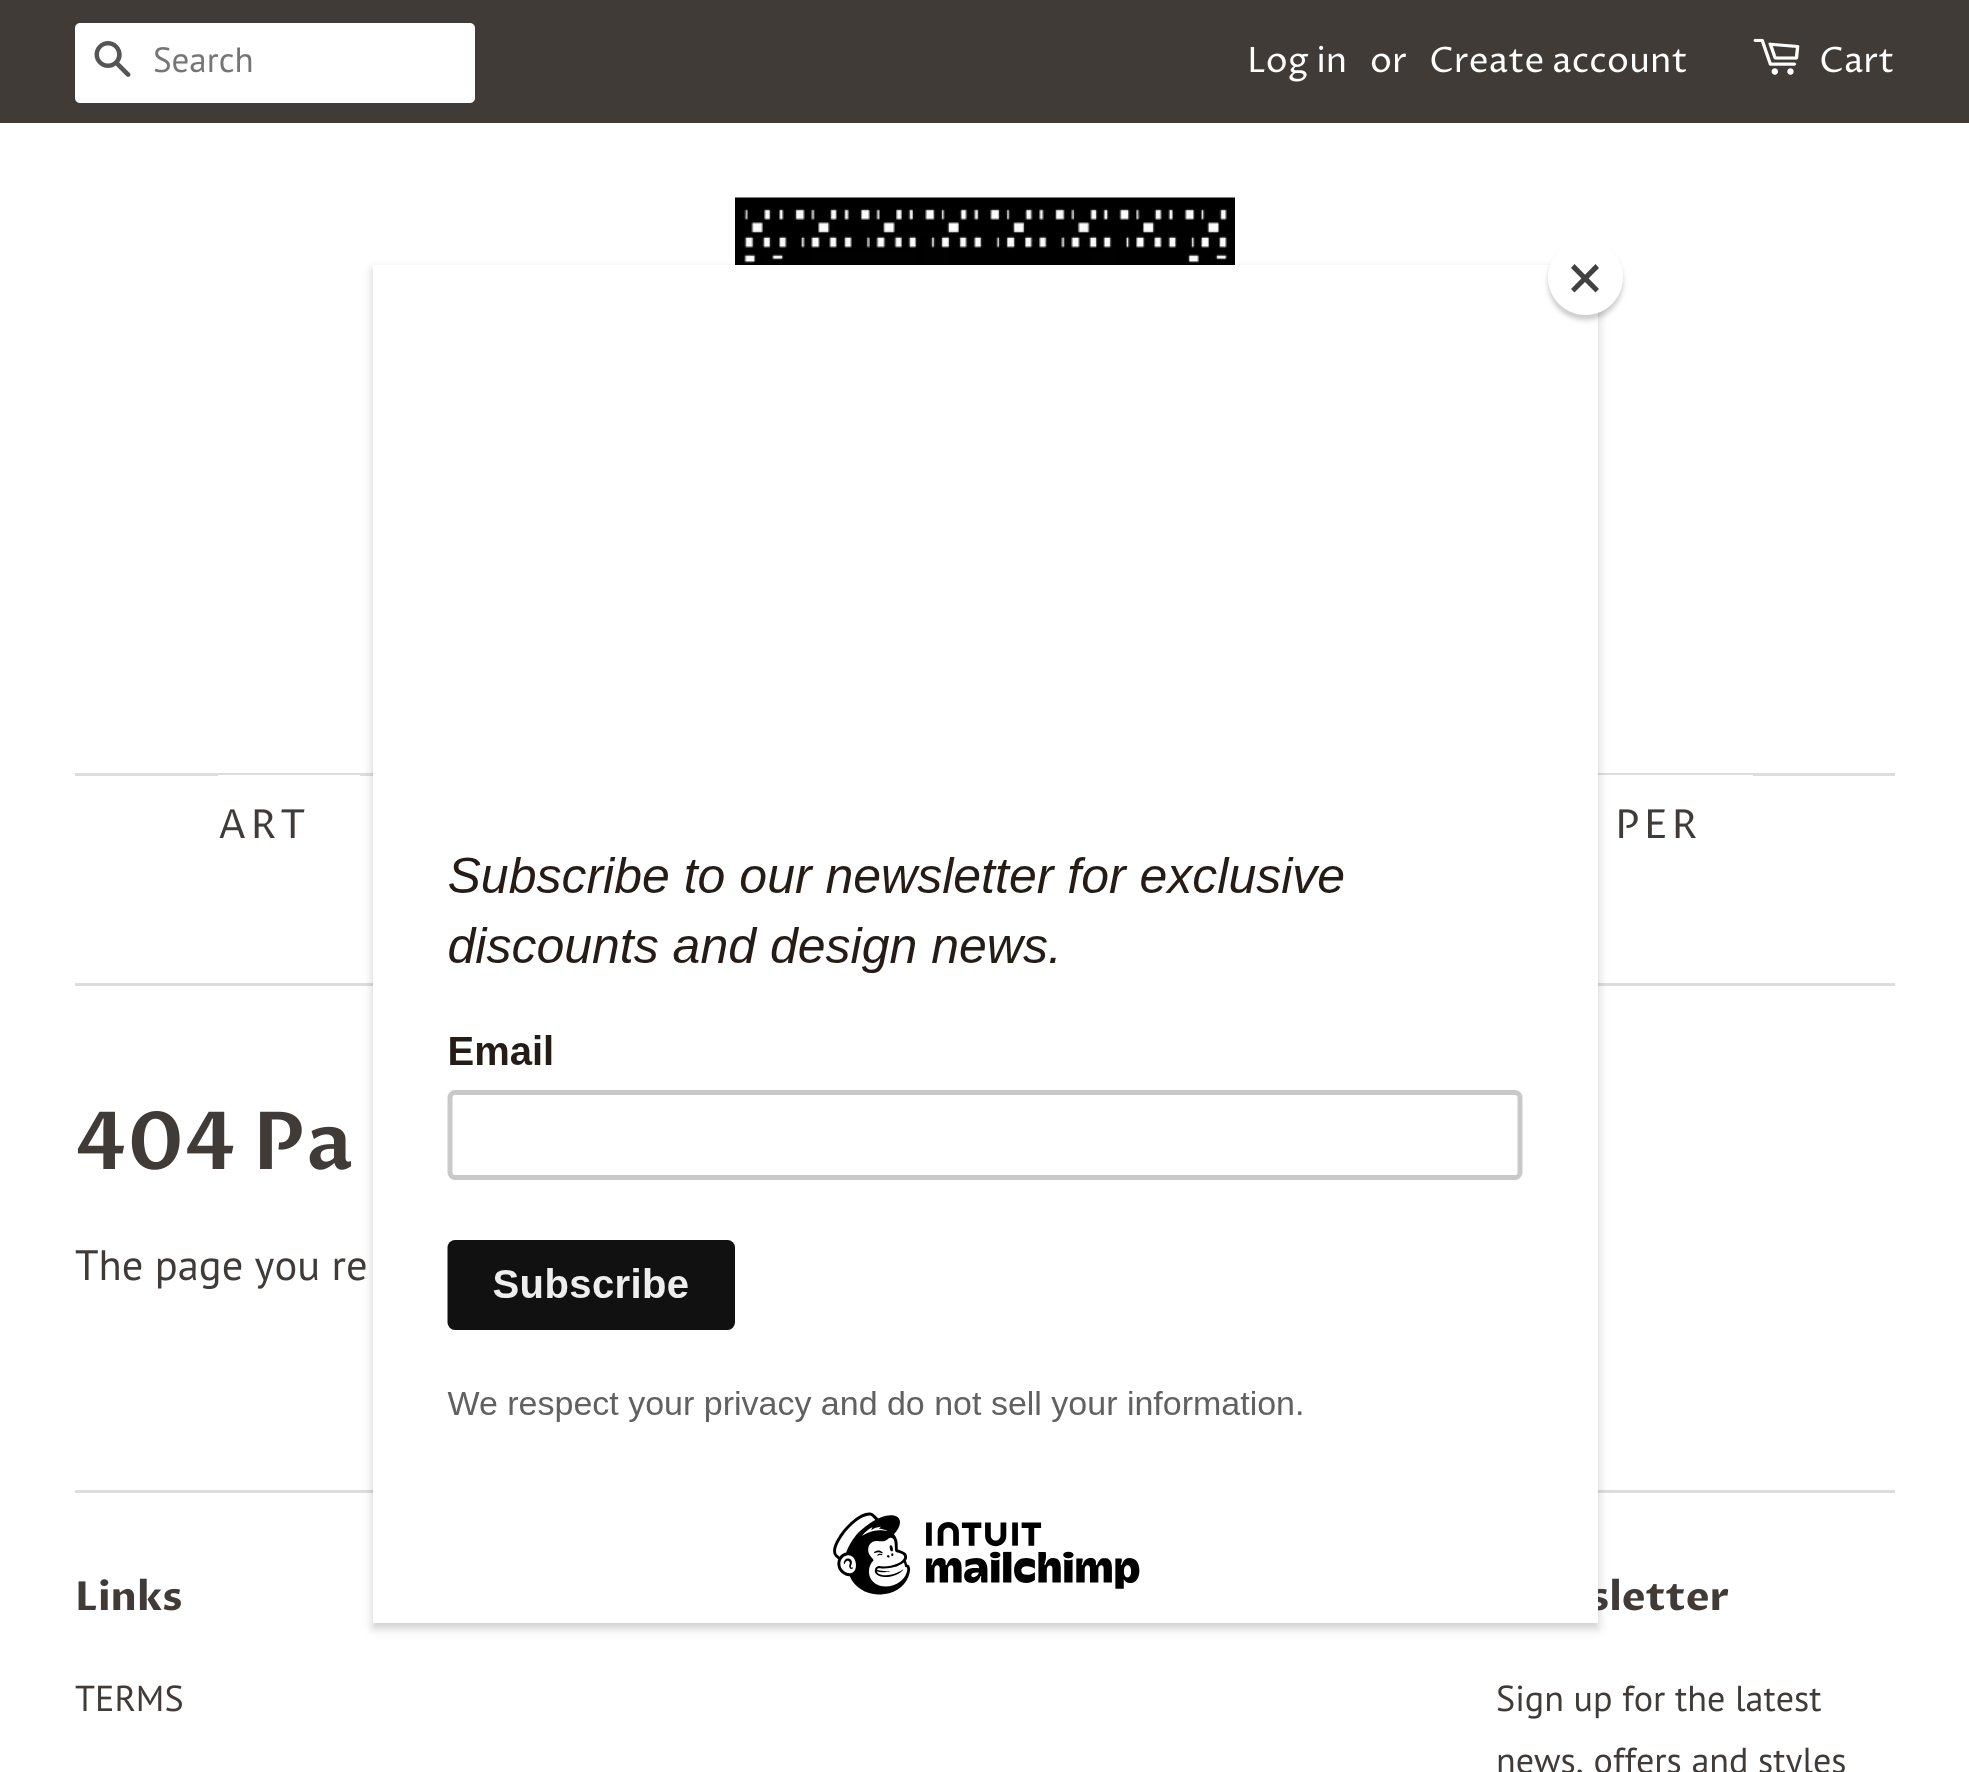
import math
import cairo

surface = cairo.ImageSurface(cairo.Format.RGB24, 1969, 1772)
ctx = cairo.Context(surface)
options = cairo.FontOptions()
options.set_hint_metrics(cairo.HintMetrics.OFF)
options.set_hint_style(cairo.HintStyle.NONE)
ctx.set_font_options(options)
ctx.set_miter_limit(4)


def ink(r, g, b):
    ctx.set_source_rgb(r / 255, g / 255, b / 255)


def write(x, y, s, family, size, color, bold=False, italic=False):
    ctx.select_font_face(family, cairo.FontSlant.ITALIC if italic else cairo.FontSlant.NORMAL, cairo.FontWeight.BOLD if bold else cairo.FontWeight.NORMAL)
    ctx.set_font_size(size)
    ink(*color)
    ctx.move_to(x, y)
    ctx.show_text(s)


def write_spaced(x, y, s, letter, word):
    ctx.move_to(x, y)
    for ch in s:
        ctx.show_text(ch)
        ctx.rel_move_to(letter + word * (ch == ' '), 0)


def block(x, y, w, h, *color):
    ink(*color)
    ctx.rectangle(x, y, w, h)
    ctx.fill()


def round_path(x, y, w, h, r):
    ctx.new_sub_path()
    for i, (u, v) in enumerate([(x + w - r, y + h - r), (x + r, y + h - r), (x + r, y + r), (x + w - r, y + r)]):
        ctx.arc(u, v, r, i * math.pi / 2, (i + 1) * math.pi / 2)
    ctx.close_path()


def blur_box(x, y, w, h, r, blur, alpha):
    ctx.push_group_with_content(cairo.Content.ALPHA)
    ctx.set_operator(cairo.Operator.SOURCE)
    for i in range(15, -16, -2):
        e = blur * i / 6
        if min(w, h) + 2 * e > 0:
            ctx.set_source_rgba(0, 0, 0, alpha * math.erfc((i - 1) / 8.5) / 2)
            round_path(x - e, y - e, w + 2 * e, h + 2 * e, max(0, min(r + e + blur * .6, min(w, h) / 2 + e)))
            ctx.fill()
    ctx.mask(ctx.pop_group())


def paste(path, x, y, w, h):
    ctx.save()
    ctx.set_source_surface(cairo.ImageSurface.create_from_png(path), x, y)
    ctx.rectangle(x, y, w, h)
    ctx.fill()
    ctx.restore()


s1 = dict(family="PT Sans", size=35, color=(117, 117, 117))
s2 = dict(family="Proza Libre", size=35, color=(255, 255, 255))
s3 = dict(family="Proza Libre SemiBold", size=80, color=(64, 59, 55))
s4 = dict(family="PT Sans", size=42.5, color=(64, 59, 55))
s5 = dict(family="Proza Libre", size=40, color=(64, 59, 55), bold=True)
s6 = dict(family="PT Sans", size=36.1, color=(64, 59, 55))

ink(255, 255, 255)
ctx.paint()
block(0, 0, 1969, 123, 64, 59, 55)
ink(255, 255, 255)
round_path(75, 23, 400, 80, 5)
ctx.fill()
paste("pic1.png", 94, 41, 37, 36)
write(153, 72, "Search", **s1)
write(1247, 72, "Log in", **s2)
write(1370, 72, "or", **s2)
write(1429, 72, "Create account", **s2)
paste("pic2.png", 1753, 38, 47, 37)
write(1819, 72, "Cart", **s2)
paste("pic3.png", 735, 197, 500, 68)
block(75, 773, 1820, 3, 221, 221, 221)
block(75, 983, 1820, 3, 221, 221, 221)
block(218, 775, 142, 1, 255, 255, 255)
ctx.set_font_size(40)
ink(64, 59, 55)
write_spaced(218, 838, "ART", 4, 0)
block(1598, 775, 155, 1, 255, 255, 255)
ink(64, 59, 55)
write_spaced(1615, 838, "PER", 4, 0)
write(75, 1169, "404 Pa", **s3)
write(75, 1280, "The page you re", **s4)
block(75, 1490, 1820, 3, 221, 221, 221)
ink(0, 0, 0)
blur_box(373, 270, 1225, 1358, 0, 5, 0.2)
write(1589, 1610, "sletter", **s5)
paste("pic4.png", 373, 265, 1225, 1358)
ink(0, 0, 0)
blur_box(1548, 245, 75, 75, 37.5, 2.5, 0.2)
ink(255, 255, 255)
ctx.arc(1585.5, 277.5, 37.5, 0, 2 * math.pi)
ctx.fill()
ink(65, 65, 65)
ctx.new_path()
ctx.move_to(1595.5, 264)
ctx.line_to(1599, 268)
ctx.line_to(1574.5, 292.5)
ctx.line_to(1571, 289)
ctx.close_path()
ctx.fill()
ctx.new_path()
ctx.move_to(1571, 268)
ctx.line_to(1574.5, 264)
ctx.line_to(1599, 289)
ctx.line_to(1595.5, 292.5)
ctx.close_path()
ctx.fill()
write(75, 1610, "Links", **s5)
write(75, 1711, "TERMS", **s6)
write(1496, 1711, "Sign up for the latest", **s6)
write(1496, 1773, "news, offers and styles", **s6)
surface.write_to_png("screenshot.png")
